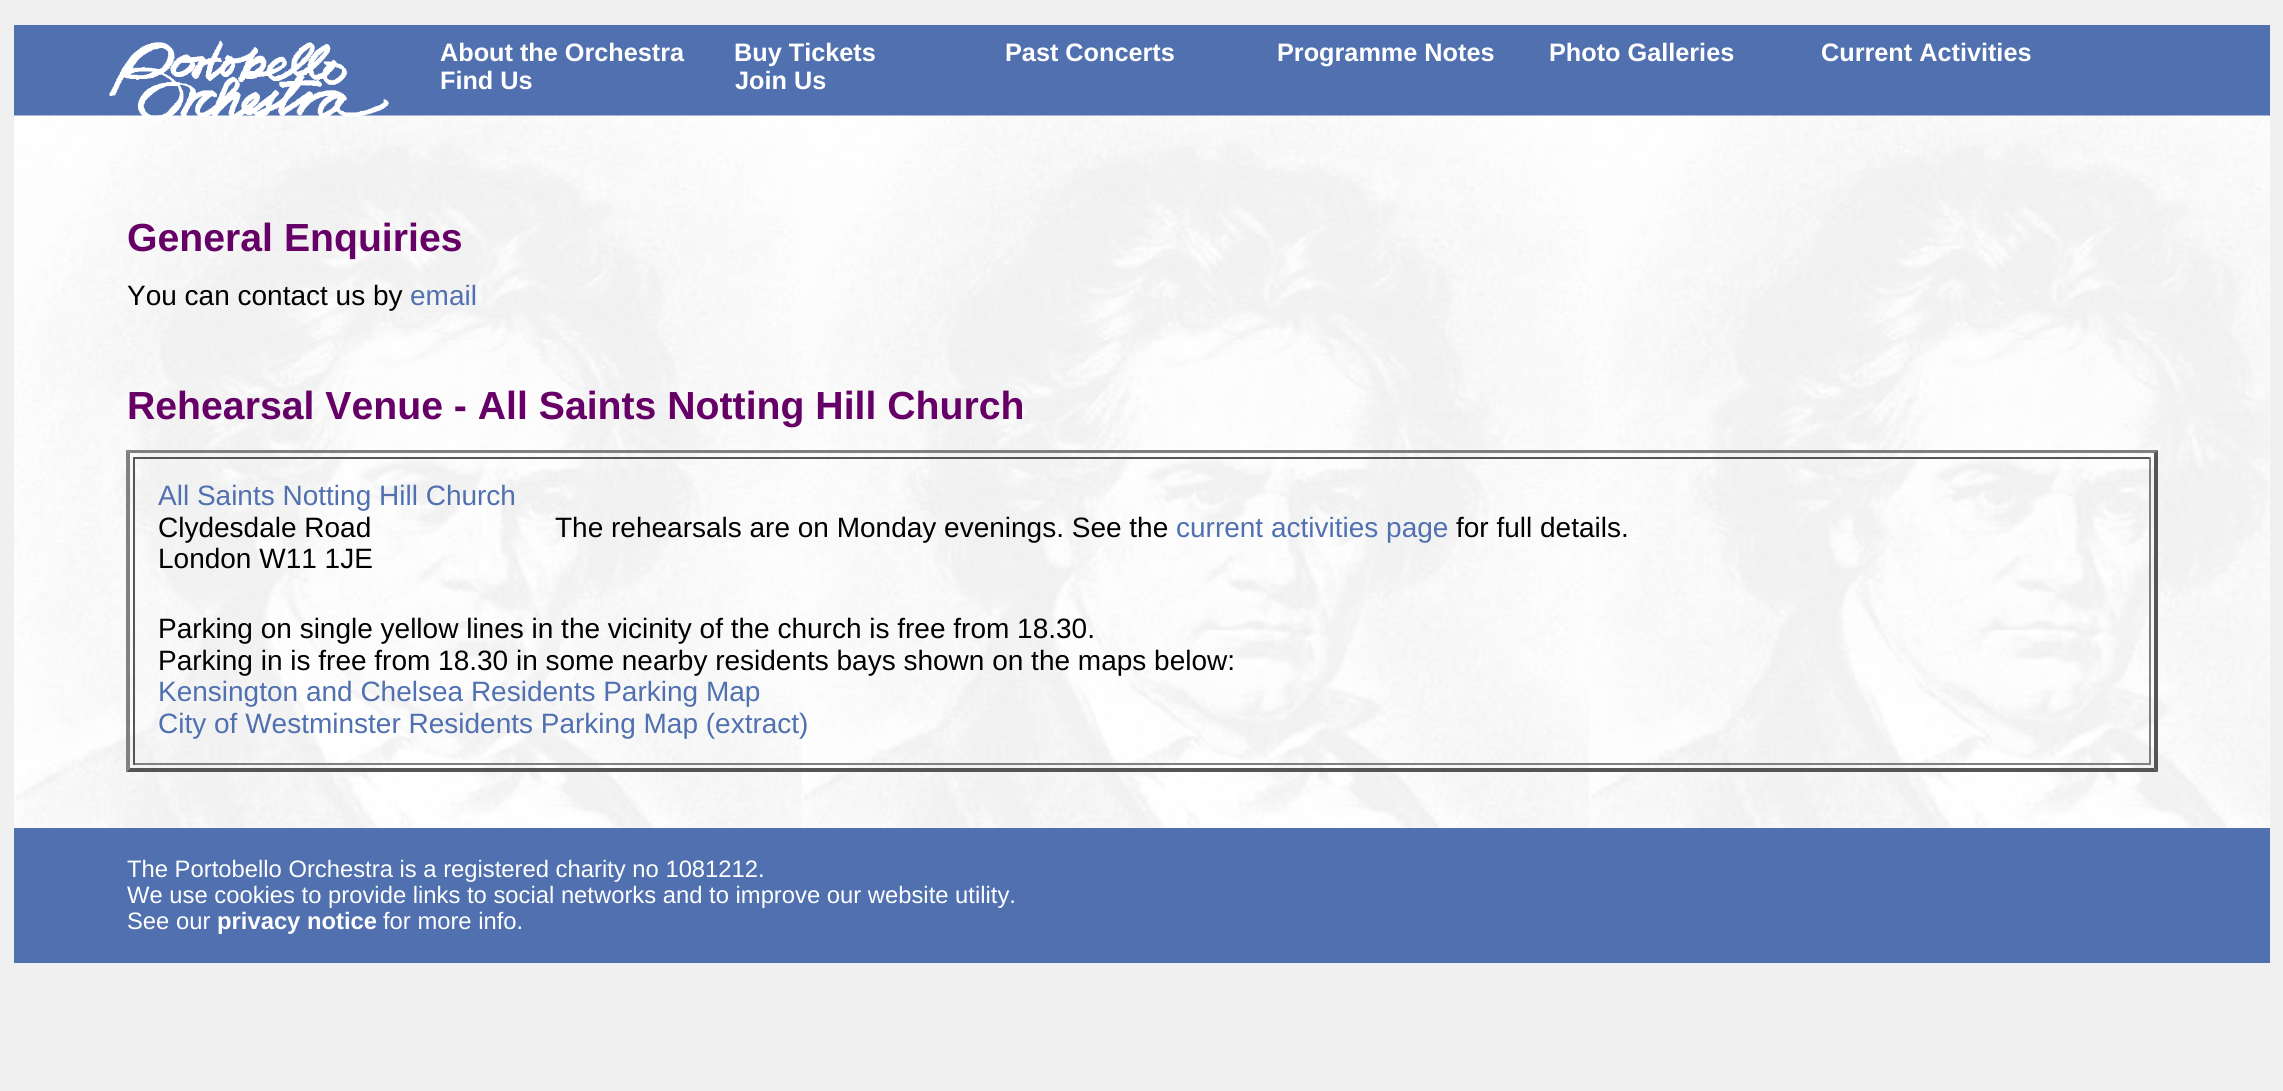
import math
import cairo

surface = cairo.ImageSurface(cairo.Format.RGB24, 2283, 1091)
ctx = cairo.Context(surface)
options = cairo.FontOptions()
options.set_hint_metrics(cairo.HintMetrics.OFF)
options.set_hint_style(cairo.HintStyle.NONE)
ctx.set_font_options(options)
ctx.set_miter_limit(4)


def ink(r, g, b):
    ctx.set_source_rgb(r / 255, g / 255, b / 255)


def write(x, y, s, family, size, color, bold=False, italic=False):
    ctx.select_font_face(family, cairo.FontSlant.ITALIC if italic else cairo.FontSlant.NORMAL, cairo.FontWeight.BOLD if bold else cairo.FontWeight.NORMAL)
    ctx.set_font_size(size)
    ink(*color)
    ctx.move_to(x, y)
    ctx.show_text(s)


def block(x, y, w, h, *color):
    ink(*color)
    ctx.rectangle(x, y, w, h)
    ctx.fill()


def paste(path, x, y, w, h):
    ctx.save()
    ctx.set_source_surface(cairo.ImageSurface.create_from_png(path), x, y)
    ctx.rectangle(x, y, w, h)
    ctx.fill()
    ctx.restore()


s1 = dict(family="Liberation Sans", size=25.25, color=(255, 255, 255), bold=True)
s2 = dict(family="Liberation Sans", size=39.2, color=(102, 0, 102), bold=True)
s3 = dict(family="Liberation Sans", size=28, color=(0, 0, 0))
s4 = dict(family="Liberation Sans", size=28, color=(80, 112, 176))
s5 = dict(family="Liberation Sans", size=23.8, color=(255, 255, 255))
s6 = dict(family="Liberation Sans", size=23.8, color=(255, 255, 255), bold=True)

ink(240, 240, 240)
ctx.paint()
block(14, 25, 2256, 91, 80, 112, 176)
block(14, 116, 2256, 712, 255, 255, 255)
paste("pic2.png", 14, 115, 2256, 713)
paste("pic1.png", 109, 40, 280, 81)
write(440, 61, "About the Orchestra", **s1)
write(734, 61, "Buy Tickets", **s1)
write(1005, 61, "Past Concerts", **s1)
write(1277, 61, "Programme Notes", **s1)
write(1549, 61, "Photo Galleries", **s1)
write(1821, 61, "Current Activities", **s1)
write(440, 89, "Find Us", **s1)
write(735, 89, "Join Us", **s1)
write(127, 251, "General Enquiries", **s2)
write(127, 305, "You can contact us by", **s3)
write(410, 305, "email", **s4)
write(127, 419, "Rehearsal Venue - All Saints Notting Hill Church", **s2)
ink(128, 128, 128)
ctx.new_path()
ctx.move_to(126, 450)
ctx.line_to(2158, 450)
ctx.line_to(2154, 453)
ctx.line_to(130, 453)
ctx.close_path()
ctx.fill()
ink(85, 85, 85)
ctx.new_path()
ctx.move_to(2158, 450)
ctx.line_to(2158, 772)
ctx.line_to(2154, 768)
ctx.line_to(2154, 453)
ctx.close_path()
ctx.fill()
ctx.new_path()
ctx.move_to(2158, 772)
ctx.line_to(126, 772)
ctx.line_to(130, 768)
ctx.line_to(2154, 768)
ctx.close_path()
ctx.fill()
ink(128, 128, 128)
ctx.new_path()
ctx.move_to(126, 772)
ctx.line_to(126, 450)
ctx.line_to(130, 453)
ctx.line_to(130, 768)
ctx.close_path()
ctx.fill()
block(133, 457, 2018, 2, 85, 85, 85)
block(2149, 457, 2, 308, 128, 128, 128)
block(133, 763, 2018, 2, 128, 128, 128)
block(133, 457, 2, 308, 85, 85, 85)
write(158, 505, "All Saints Notting Hill Church", **s4)
write(158, 537, "Clydesdale Road", **s3)
write(158, 568, "London W11 1JE", **s3)
write(555, 537, "The rehearsals are on Monday evenings. See the", **s3)
write(1176, 537, "current activities page", **s4)
write(1456, 537, "for full details.", **s3)
write(158, 638, "Parking on single yellow lines in the vicinity of the church is free from 18.30.", **s3)
write(158, 670, "Parking in is free from 18.30 in some nearby residents bays shown on the maps below:", **s3)
write(158, 701, "Kensington and Chelsea Residents Parking Map", **s4)
write(158, 733, "City of Westminster Residents Parking Map (extract)", **s4)
block(14, 828, 2256, 135, 80, 112, 176)
write(127, 877, "The Portobello Orchestra is a registered charity no 1081212.", **s5)
write(127, 903, "We use cookies to provide links to social networks and to improve our website utility.", **s5)
write(127, 929, "See our", **s5)
write(217, 929, "privacy notice", **s6)
write(383, 929, "for more info.", **s5)
surface.write_to_png("screenshot.png")
